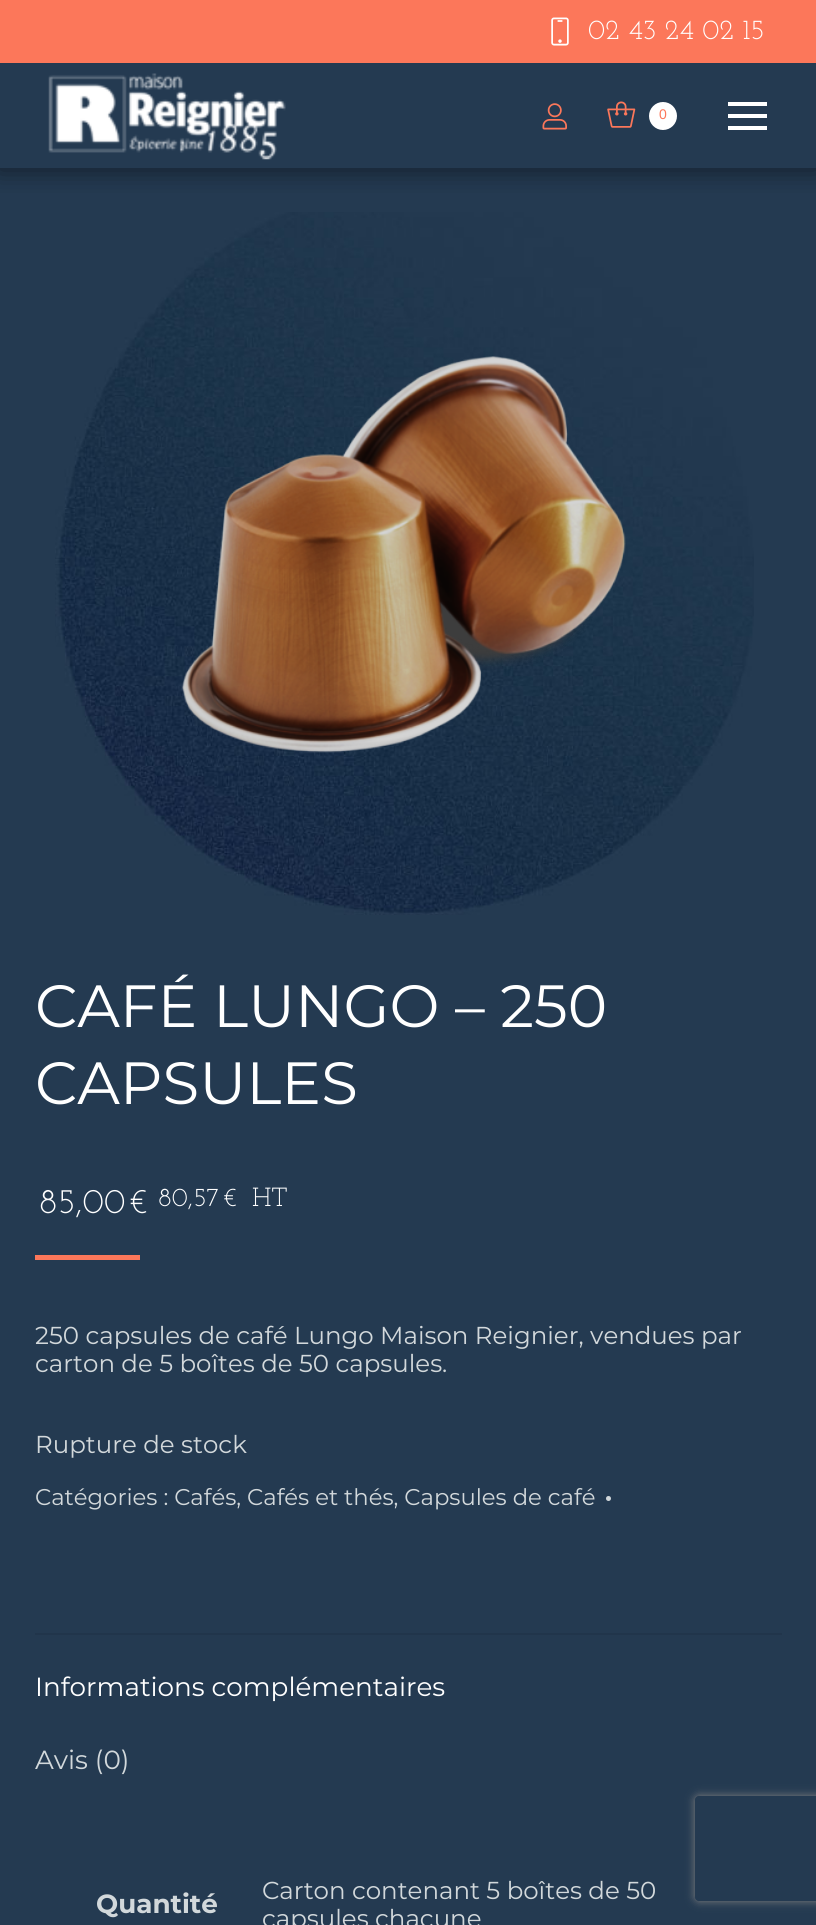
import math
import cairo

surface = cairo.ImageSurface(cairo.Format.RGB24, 816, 1925)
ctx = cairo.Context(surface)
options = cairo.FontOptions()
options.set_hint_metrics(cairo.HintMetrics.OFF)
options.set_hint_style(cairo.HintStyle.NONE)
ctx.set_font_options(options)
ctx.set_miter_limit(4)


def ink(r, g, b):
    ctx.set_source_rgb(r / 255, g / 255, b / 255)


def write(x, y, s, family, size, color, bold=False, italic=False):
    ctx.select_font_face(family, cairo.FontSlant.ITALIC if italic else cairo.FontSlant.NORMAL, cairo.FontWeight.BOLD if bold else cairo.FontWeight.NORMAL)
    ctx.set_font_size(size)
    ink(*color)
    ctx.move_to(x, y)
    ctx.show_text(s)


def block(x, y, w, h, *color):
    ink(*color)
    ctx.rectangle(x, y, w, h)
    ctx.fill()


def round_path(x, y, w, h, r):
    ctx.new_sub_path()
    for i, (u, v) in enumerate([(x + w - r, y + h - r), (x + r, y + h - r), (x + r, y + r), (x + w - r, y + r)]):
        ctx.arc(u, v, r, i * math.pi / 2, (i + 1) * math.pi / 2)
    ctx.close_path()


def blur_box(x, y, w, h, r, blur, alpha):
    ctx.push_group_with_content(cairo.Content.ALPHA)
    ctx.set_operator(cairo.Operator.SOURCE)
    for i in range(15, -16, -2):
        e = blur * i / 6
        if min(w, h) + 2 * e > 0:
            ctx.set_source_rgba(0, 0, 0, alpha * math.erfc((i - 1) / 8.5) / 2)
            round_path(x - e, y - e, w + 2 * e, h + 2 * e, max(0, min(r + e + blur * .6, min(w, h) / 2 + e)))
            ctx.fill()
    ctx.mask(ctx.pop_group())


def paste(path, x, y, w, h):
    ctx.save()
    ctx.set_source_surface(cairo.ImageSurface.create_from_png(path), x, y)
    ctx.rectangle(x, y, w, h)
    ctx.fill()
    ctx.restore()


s1 = dict(family="Josefin Slab", size=28, color=(255, 255, 255))
s2 = dict(family="Liberation Sans", size=14, color=(252, 119, 90))
s3 = dict(family="Montserrat", size=59.5, color=(255, 255, 255))
s4 = dict(family="Josefin Slab", size=35, color=(255, 255, 255))
s5 = dict(family="Josefin Slab", size=26.25, color=(255, 255, 255))
s6 = dict(family="Montserrat", size=24.5, color=(210, 216, 219))
s7 = dict(family="Montserrat", size=22.75, color=(210, 216, 219))
s8 = dict(family="Montserrat", size=26.25, color=(255, 255, 255))
s9 = dict(family="Montserrat", size=26.25, color=(210, 216, 219))
s10 = dict(family="Montserrat", size=26.25, color=(210, 216, 219), bold=True)

ink(36, 58, 81)
ctx.paint()
ctx.save()
ctx.rectangle(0, 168, 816, 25)
ctx.clip()
ink(0, 0, 0)
blur_box(-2, -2, 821, 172, 0, 13, 0.5)
ctx.restore()
block(0, 0, 816, 63, 252, 119, 90)
paste("pic1.png", 551, 17, 18, 29)
write(588, 39, "02 43 24 02 15", **s1)
paste("pic2.png", 48, 73, 238, 87)
paste("pic3.png", 542, 103, 25, 27)
paste("pic4.png", 607, 101, 29, 27)
ctx.arc(663, 116, 14, 0, 2 * math.pi)
ctx.fill()
write(659, 119, "0", **s2)
block(728, 102, 39, 4, 255, 255, 255)
block(728, 114, 39, 4, 255, 255, 255)
block(728, 126, 39, 4, 255, 255, 255)
paste("pic5.png", 55, 212, 699, 703)
paste("pic6.png", 181, 356, 445, 403)
write(35, 1027, "CAFÉ LUNGO – 250", **s3)
write(35, 1104, "CAPSULES", **s3)
write(39, 1213, "85,00", **s4)
write(129, 1213, "€", **s4)
write(158, 1206, "80,57", **s5)
write(223, 1206, "€", **s5)
write(252, 1206, "HT", **s5)
block(35, 1255, 105, 5, 252, 119, 90)
write(35, 1344, "250 capsules de café Lungo Maison Reignier, vendues par", **s6)
write(35, 1372, "carton de 5 boîtes de 50 capsules.", **s6)
write(35, 1453, "Rupture de stock", **s6)
write(35, 1505, "Catégories : Cafés, Cafés et thés, Capsules de café", **s7)
ctx.new_path()
ctx.arc(608.5, 1498.5, 2.5, 0, 2 * math.pi)
ctx.fill()
block(35, 1633, 747, 2, 33, 53, 75)
write(35, 1696, "Informations complémentaires", **s8)
write(35, 1769, "Avis (0)", **s9)
write(96, 1913, "Quantité", **s10)
write(262, 1899, "Carton contenant 5 boîtes de 50", **s6)
write(262, 1927, "capsules chacune", **s6)
ctx.save()
ctx.set_fill_rule(cairo.FillRule.EVEN_ODD)
ctx.new_path()
ctx.move_to(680, 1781)
ctx.line_to(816, 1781)
ctx.line_to(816, 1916)
ctx.line_to(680, 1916)
ctx.close_path()
ctx.move_to(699, 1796)
ctx.line_to(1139, 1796)
ctx.curve_to(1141, 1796, 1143, 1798, 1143, 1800)
ctx.line_to(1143, 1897)
ctx.curve_to(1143, 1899, 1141, 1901, 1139, 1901)
ctx.line_to(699, 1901)
ctx.curve_to(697, 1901, 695, 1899, 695, 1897)
ctx.line_to(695, 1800)
ctx.curve_to(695, 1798, 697, 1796, 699, 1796)
ctx.close_path()
ctx.clip()
ink(128, 128, 128)
blur_box(695, 1796, 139, 105, 4, 4.5, 1)
ctx.restore()
surface.write_to_png("screenshot.png")
